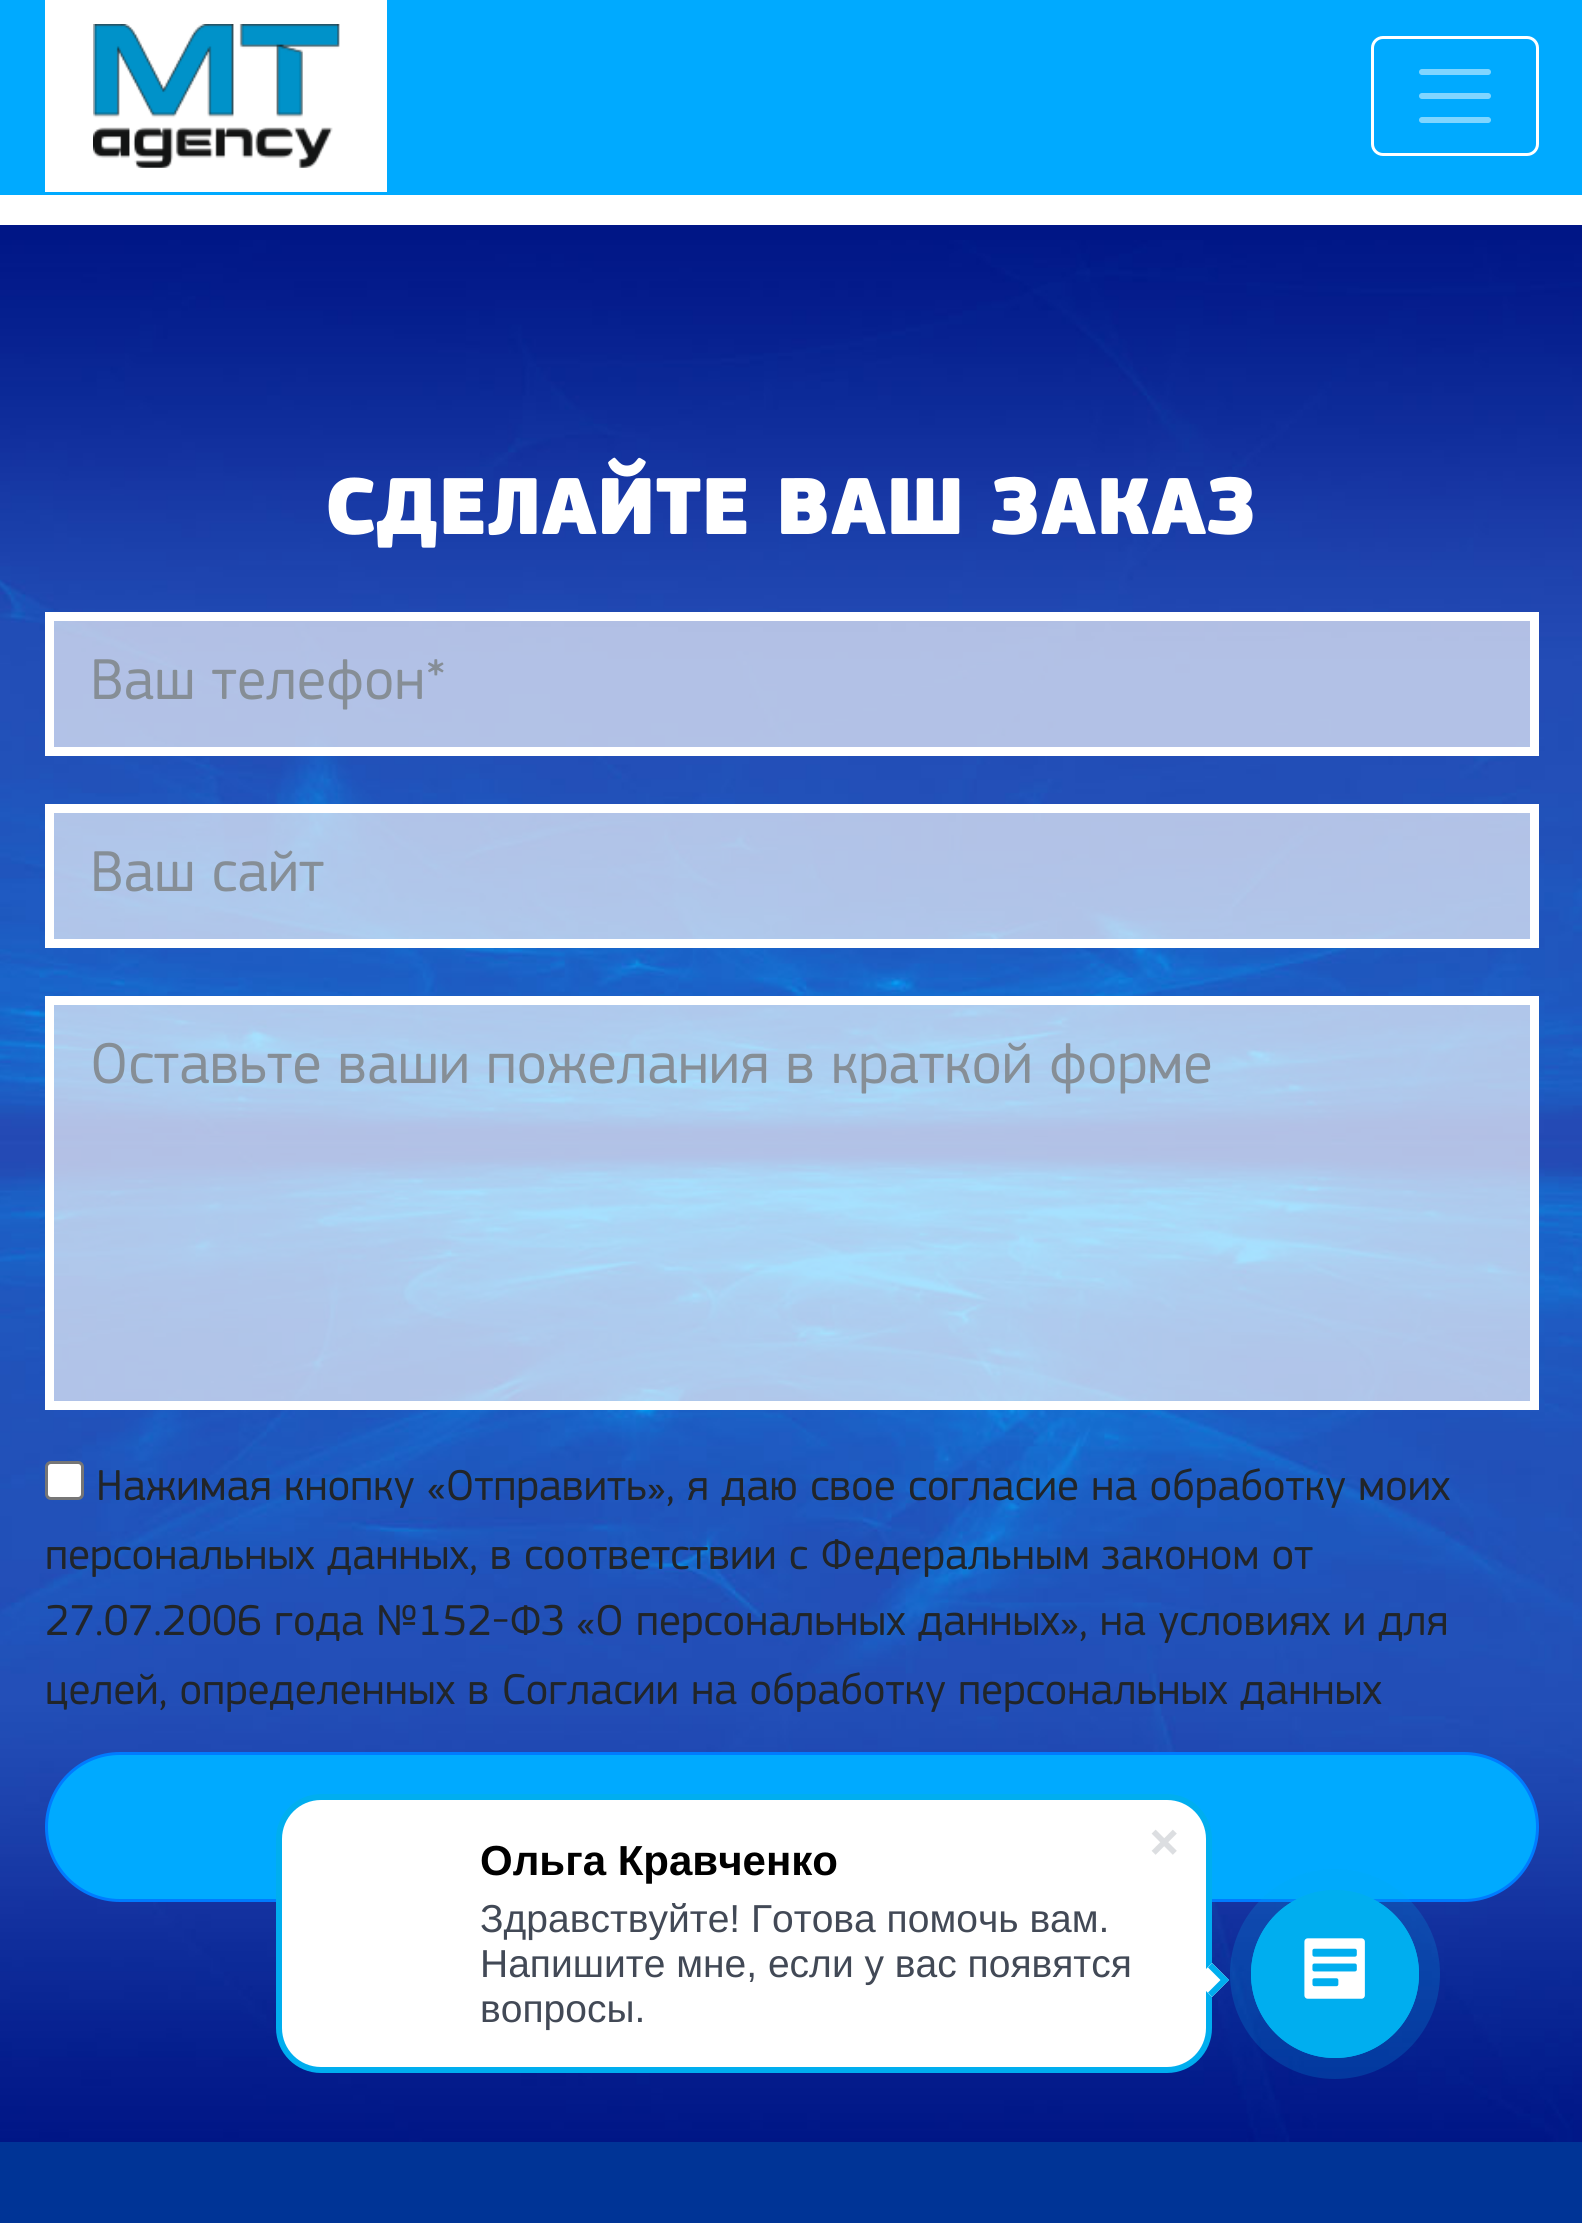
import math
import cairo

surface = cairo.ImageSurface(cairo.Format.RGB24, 1582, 2223)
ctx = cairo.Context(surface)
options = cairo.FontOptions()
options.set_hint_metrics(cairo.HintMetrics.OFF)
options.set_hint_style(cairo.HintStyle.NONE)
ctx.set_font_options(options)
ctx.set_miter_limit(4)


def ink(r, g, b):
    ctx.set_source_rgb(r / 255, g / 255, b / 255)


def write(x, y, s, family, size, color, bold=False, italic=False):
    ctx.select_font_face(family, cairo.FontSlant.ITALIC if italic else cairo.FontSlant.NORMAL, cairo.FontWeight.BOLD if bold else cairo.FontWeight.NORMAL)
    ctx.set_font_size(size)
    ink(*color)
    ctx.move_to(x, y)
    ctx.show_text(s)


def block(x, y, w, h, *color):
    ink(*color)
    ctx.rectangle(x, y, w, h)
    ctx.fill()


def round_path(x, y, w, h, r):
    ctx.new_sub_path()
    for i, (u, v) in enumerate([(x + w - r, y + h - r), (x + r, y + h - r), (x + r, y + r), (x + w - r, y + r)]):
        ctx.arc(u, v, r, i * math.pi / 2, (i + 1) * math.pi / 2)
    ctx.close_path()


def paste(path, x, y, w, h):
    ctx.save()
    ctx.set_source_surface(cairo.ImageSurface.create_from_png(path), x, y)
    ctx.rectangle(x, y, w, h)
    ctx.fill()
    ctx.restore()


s1 = dict(family="Liberation Sans", size=42, color=(0, 0, 0), bold=True)
s2 = dict(family="Liberation Sans", size=39, color=(66, 73, 86))

ink(255, 255, 255)
ctx.paint()
block(0, 0, 1582, 195, 0, 170, 255)
block(45, 0, 342, 192, 255, 255, 255)
paste("pic1.png", 93, 24, 247, 144)
round_path(1372.5, 37.5, 165, 117, 10.5)
ctx.set_line_width(3)
ctx.stroke()
ctx.new_path()
ctx.move_to(1422, 72)
ctx.line_to(1488, 72)
ctx.move_to(1422, 96)
ctx.line_to(1488, 96)
ctx.move_to(1422, 120)
ctx.line_to(1488, 120)
ink(128, 213, 255)
ctx.set_line_width(6)
ctx.set_line_cap(cairo.LineCap.ROUND)
ctx.stroke()
block(0, 225, 1582, 15, 0, 22, 134)
paste("pic2.png", 0, 240, 1582, 1902)
paste("pic3.png", 328, 457, 925, 91)
ctx.set_source_rgba(1, 1, 1, 0.65)
ctx.rectangle(49.5, 616.5, 1485, 135)
ctx.fill_preserve()
ink(255, 255, 255)
ctx.set_line_width(9)
ctx.set_line_cap(cairo.LineCap.BUTT)
ctx.stroke()
paste("pic4.png", 94, 659, 350, 51)
ctx.set_source_rgba(1, 1, 1, 0.65)
ctx.rectangle(49.5, 808.5, 1485, 135)
ctx.fill_preserve()
ink(255, 255, 255)
ctx.stroke()
paste("pic5.png", 94, 850, 230, 42)
ctx.set_source_rgba(1, 1, 1, 0.65)
ctx.rectangle(49.5, 1000.5, 1485, 405)
ctx.fill_preserve()
ink(255, 255, 255)
ctx.stroke()
paste("pic6.png", 93, 1042, 1118, 52)
round_path(46.5, 1462.5, 36, 36, 4.5)
ctx.fill_preserve()
ink(118, 118, 118)
ctx.set_line_width(3)
ctx.stroke()
paste("pic7.png", 99, 1468, 1351, 40)
paste("pic8.png", 47, 1539, 1266, 38)
paste("pic9.png", 47, 1604, 1399, 39)
paste("pic10.png", 47, 1672, 1335, 40)
ink(0, 170, 255)
round_path(46.5, 1753.5, 1491, 147, 73.5)
ctx.fill_preserve()
ink(0, 123, 255)
ctx.stroke()
ink(255, 255, 255)
round_path(279, 1797, 930, 273, 42)
ctx.fill_preserve()
ink(0, 174, 239)
ctx.set_line_width(6)
ctx.stroke()
paste("pic11.png", 1151, 1829, 26, 26)
write(480, 1875, "Ольга Кравченко", **s1)
write(480, 1932, "Здравствуйте! Готова помочь вам.", **s2)
write(480, 1977, "Напишите мне, если у вас появятся", **s2)
write(480, 2022, "вопросы.", **s2)
ink(255, 255, 255)
ctx.new_path()
ctx.move_to(1195, 1980)
ctx.line_to(1212, 1963)
ctx.line_to(1229, 1980)
ctx.line_to(1212, 1997)
ctx.close_path()
ctx.fill()
ink(0, 174, 239)
ctx.new_path()
ctx.move_to(1208, 1967.5)
ctx.line_to(1212, 1963)
ctx.line_to(1229, 1980)
ctx.line_to(1224.5, 1984)
ctx.close_path()
ctx.fill()
ctx.new_path()
ctx.move_to(1208, 1992.5)
ctx.line_to(1224.5, 1976)
ctx.line_to(1229, 1980)
ctx.line_to(1212, 1997)
ctx.close_path()
ctx.fill()
ctx.set_source_rgba(0, 0.682, 0.937, 0.2)
ctx.arc(1335, 1974, 105, 0, 2 * math.pi)
ctx.fill()
ctx.arc(1335, 1974, 83, 0, 2 * math.pi)
ink(0, 174, 239)
ctx.set_line_width(2)
ctx.stroke()
ctx.arc(1335, 1974, 84, 0, 2 * math.pi)
ctx.fill()
paste("pic12.png", 1304, 1938, 61, 61)
block(0, 2142, 1582, 81, 0, 52, 150)
surface.write_to_png("screenshot.png")
